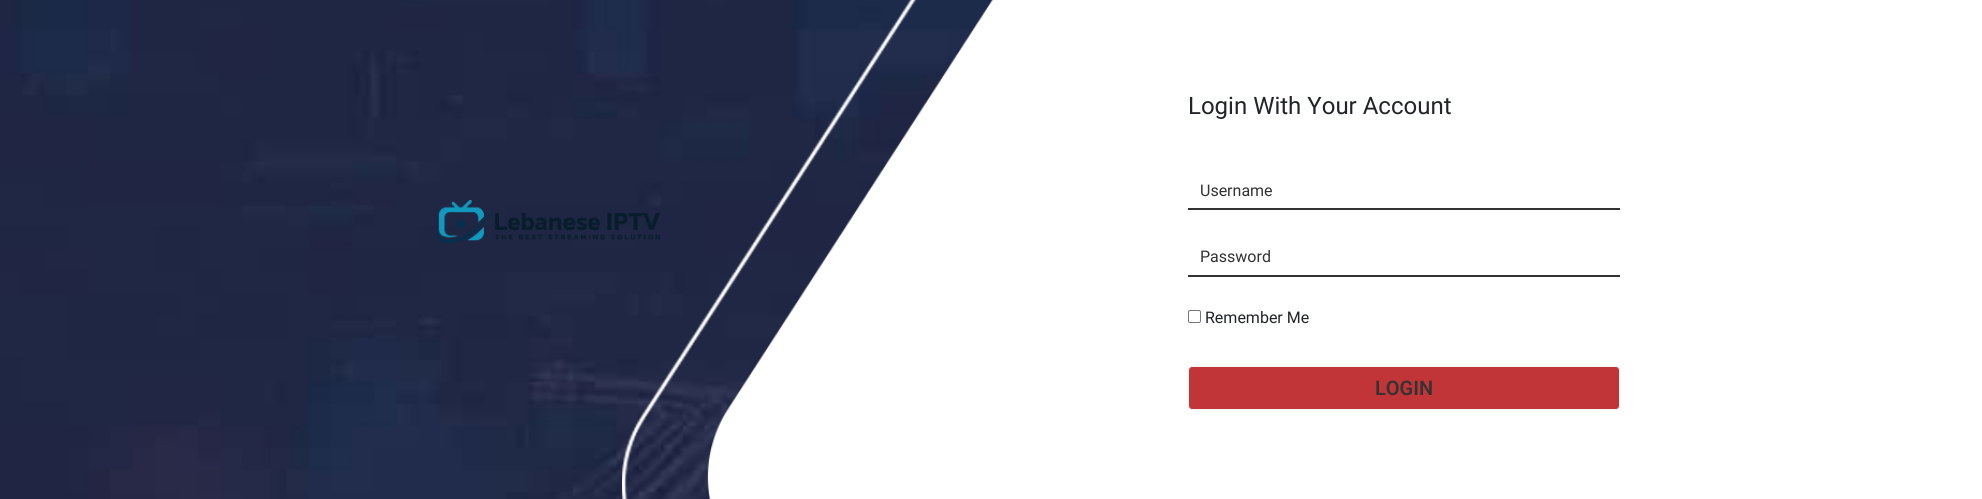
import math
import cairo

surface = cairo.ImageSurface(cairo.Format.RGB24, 1982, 499)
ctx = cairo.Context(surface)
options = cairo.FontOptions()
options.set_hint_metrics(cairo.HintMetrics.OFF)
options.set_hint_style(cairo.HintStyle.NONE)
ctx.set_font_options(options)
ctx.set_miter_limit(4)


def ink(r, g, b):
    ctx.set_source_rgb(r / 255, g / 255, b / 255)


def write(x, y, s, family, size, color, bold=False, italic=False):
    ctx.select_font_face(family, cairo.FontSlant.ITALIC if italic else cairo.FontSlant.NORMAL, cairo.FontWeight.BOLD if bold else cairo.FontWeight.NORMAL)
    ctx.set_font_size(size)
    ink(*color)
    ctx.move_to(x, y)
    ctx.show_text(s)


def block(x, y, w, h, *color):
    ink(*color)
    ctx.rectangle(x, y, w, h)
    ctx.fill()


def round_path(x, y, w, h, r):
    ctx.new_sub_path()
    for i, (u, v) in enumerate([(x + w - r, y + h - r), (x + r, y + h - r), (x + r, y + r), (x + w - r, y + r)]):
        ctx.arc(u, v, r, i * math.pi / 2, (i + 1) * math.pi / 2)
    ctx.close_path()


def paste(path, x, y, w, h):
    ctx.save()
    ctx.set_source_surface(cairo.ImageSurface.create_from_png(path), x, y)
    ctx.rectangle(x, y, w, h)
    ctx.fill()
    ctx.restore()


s1 = dict(family="Roboto", size=24, color=(33, 37, 41))
s2 = dict(family="Roboto", size=16, color=(51, 51, 51))
s3 = dict(family="Roboto", size=16, color=(33, 37, 41))
s4 = dict(family="Roboto SemiBold", size=20, color=(51, 51, 51))

ink(255, 255, 255)
ctx.paint()
paste("pic1.png", 0, 0, 994, 499)
paste("pic2.png", 436, 200, 224, 43)
paste("pic3.png", 622, 0, 1360, 499)
write(1188, 114, "Login With Your Account", **s1)
block(1188, 208, 432, 2, 51, 51, 51)
write(1200, 196, "Username", **s2)
block(1188, 275, 432, 2, 51, 51, 51)
write(1200, 262, "Password", **s2)
round_path(1188.5, 310.5, 12, 12, 1.5)
ink(118, 118, 118)
ctx.set_line_width(1)
ctx.stroke()
write(1205, 323, "Remember Me", **s3)
ink(193, 52, 56)
round_path(1188.5, 366.5, 431, 43, 3.5)
ctx.fill_preserve()
ink(248, 248, 248)
ctx.stroke()
write(1375, 395, "LOGIN", **s4)
surface.write_to_png("screenshot.png")
